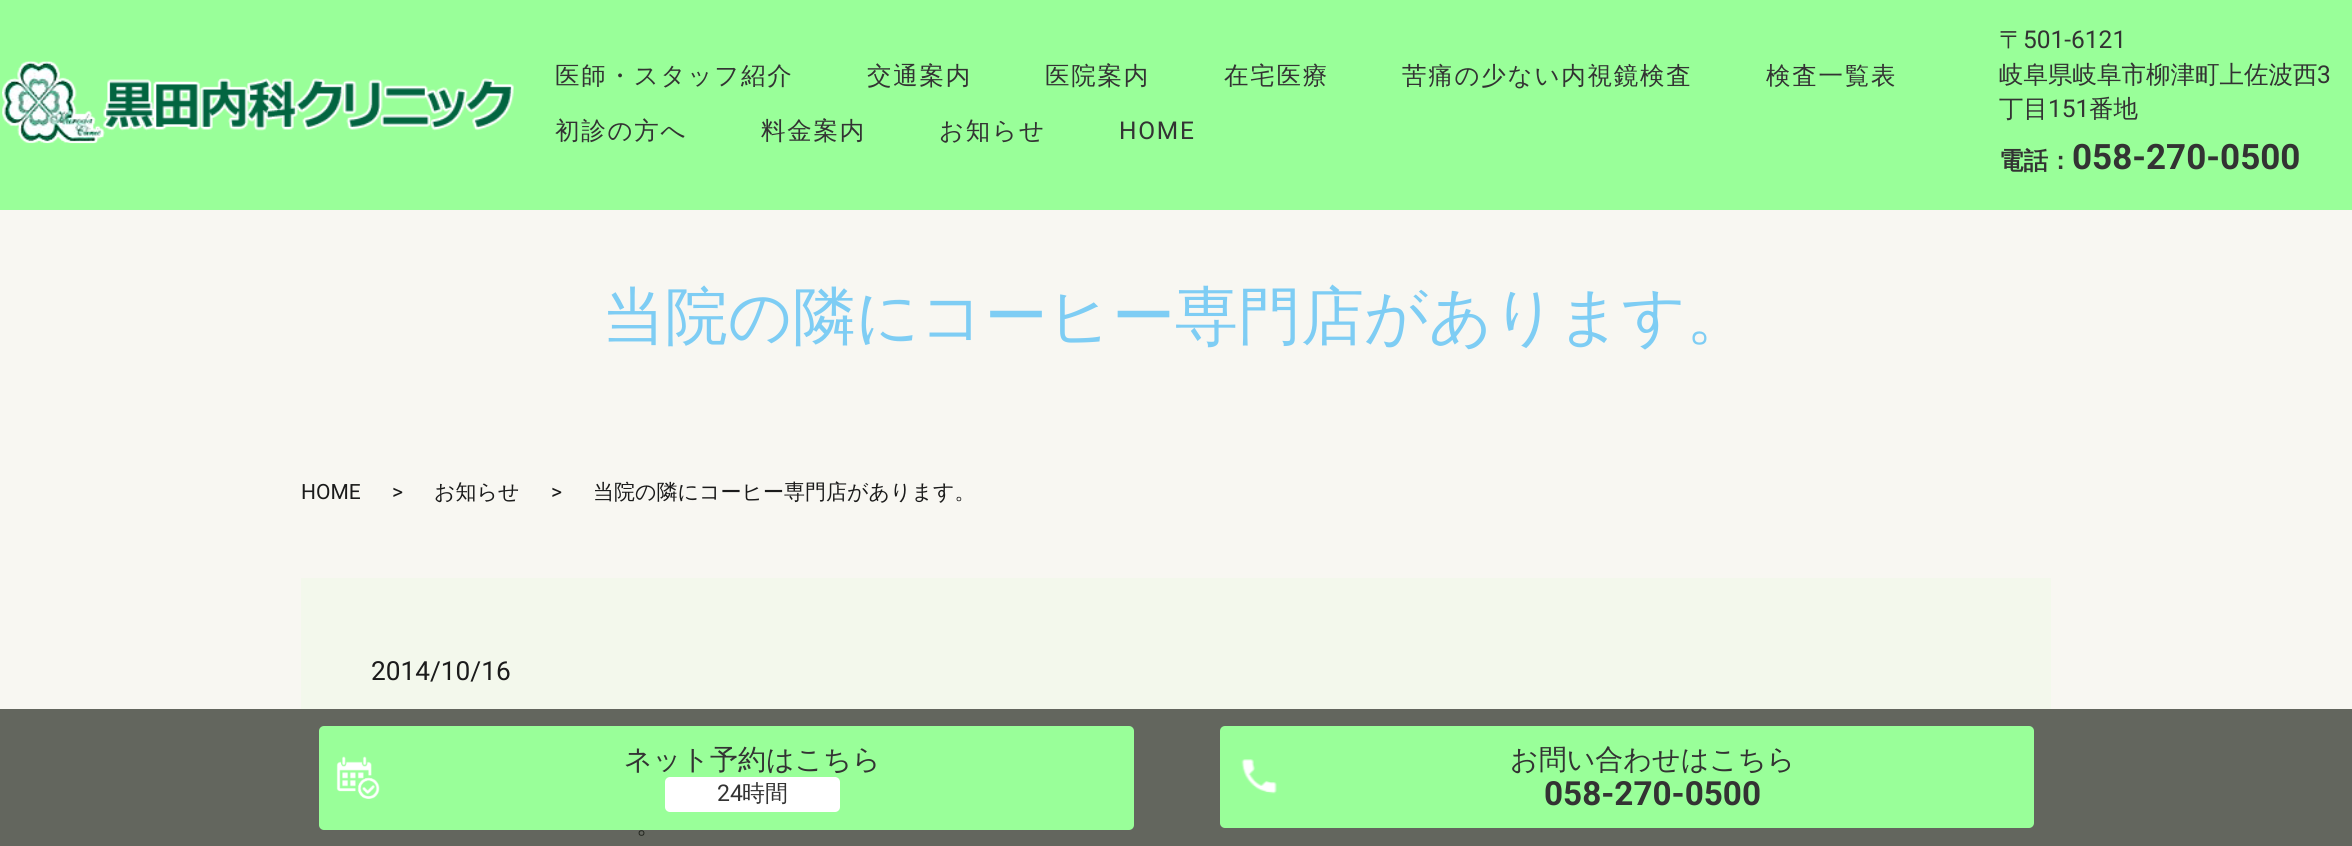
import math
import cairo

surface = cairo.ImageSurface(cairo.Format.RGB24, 2352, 846)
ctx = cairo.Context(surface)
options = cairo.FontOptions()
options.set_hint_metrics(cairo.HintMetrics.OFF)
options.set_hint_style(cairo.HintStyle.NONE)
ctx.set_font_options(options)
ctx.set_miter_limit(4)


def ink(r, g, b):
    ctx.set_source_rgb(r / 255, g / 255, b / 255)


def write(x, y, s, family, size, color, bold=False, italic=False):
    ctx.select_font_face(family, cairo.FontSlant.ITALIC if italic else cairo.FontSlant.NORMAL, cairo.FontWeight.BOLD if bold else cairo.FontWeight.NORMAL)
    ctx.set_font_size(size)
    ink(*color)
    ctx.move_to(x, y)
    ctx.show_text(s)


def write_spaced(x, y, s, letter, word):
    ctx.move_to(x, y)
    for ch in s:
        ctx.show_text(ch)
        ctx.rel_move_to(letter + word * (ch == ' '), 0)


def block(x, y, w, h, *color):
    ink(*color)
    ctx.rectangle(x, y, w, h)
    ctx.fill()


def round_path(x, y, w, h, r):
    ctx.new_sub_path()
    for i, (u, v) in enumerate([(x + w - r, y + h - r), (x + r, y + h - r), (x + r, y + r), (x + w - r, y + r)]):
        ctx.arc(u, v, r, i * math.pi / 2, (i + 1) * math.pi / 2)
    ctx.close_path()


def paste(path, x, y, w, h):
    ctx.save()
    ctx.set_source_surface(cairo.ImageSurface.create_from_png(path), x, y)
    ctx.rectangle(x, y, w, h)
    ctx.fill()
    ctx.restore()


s1 = dict(family="WenQuanYi Zen Hei Medium", size=24.5, color=(51, 51, 51))
s2 = dict(family="Roboto", size=24.5, color=(51, 51, 51))
s3 = dict(family="WenQuanYi Zen Hei", size=24.5, color=(51, 51, 51), bold=True)
s4 = dict(family="Roboto", size=35, color=(51, 51, 51), bold=True)
s5 = dict(family="WenQuanYi Zen Hei Medium", size=63, color=(126, 205, 244))
s6 = dict(family="Roboto", size=21, color=(27, 27, 27))
s7 = dict(family="WenQuanYi Zen Hei Medium", size=21, color=(27, 27, 27))
s8 = dict(family="Roboto", size=26.25, color=(27, 27, 27))
s9 = dict(family="WenQuanYi Zen Hei Medium", size=26.25, color=(33, 36, 29))
s10 = dict(family="WenQuanYi Zen Hei Medium", size=28, color=(51, 51, 51))
s11 = dict(family="Roboto", size=23, color=(51, 51, 51))
s12 = dict(family="WenQuanYi Zen Hei Medium", size=23, color=(51, 51, 51))
s13 = dict(family="Roboto", size=33.25, color=(51, 51, 51), bold=True)

ink(248, 247, 242)
ctx.paint()
block(0, 709, 2352, 137, 99, 102, 94)
block(0, 0, 2352, 210, 153, 255, 153)
paste("pic1.png", 2, 61, 512, 83)
ctx.select_font_face("WenQuanYi Zen Hei Medium")
ctx.set_font_size(24.5)
ink(51, 51, 51)
write_spaced(555, 84, "医師・スタッフ紹介", 1.75, 0)
write_spaced(867, 84, "交通案内", 1.75, 0)
write_spaced(1045, 84, "医院案内", 1.75, 0)
write_spaced(1224, 84, "在宅医療", 1.75, 0)
write_spaced(1402, 84, "苦痛の少ない内視鏡検査", 1.75, 0)
write_spaced(1766, 84, "検査一覧表", 1.75, 0)
write_spaced(555, 139, "初診の方へ", 1.75, 0)
write_spaced(761, 139, "料金案内", 1.75, 0)
write_spaced(939, 139, "お知らせ", 1.75, 0)
ctx.select_font_face("Roboto")
write_spaced(1119, 139, "HOME", 1.75, 0)
write(1999, 48, "〒", **s1)
write(2023, 48, "501-6121", **s2)
write(1999, 83, "岐阜県岐阜市柳津町上佐波西", **s1)
write(2317, 83, "3", **s2)
write(1999, 117, "丁目", **s1)
write(2048, 117, "151", **s2)
write(2089, 117, "番地", **s1)
write(1999, 169, "電話：", **s3)
write(2072, 169, "058-270-0500", **s4)
write(602, 338, "当院の隣にコーヒー専門店があります。", **s5)
write(301, 499, "HOME", **s6)
write(392, 499, ">", **s6)
write(434, 499, "お知らせ", **s7)
write(551, 499, ">", **s6)
write(593, 499, "当院の隣にコーヒー専門店があります。", **s7)
block(301, 578, 1750, 131, 243, 248, 236)
write(371, 680, "2014/10/16", **s8)
write(636, 833, "。", **s9)
ink(153, 255, 153)
round_path(319, 726, 815, 104, 5)
ctx.fill()
paste("pic2.png", 336, 756, 44, 43)
write(624, 769, "ネット予約はこちら", **s10)
ink(255, 255, 255)
round_path(665, 777, 175, 35, 5)
ctx.fill()
write(717, 801, "24", **s11)
write(742, 801, "時間", **s12)
ink(153, 255, 153)
round_path(1220, 726, 814, 102, 5)
ctx.fill()
paste("pic3.png", 1241, 759, 36, 35)
write(1510, 769, "お問い合わせはこちら", **s10)
write(1544, 805, "058-270-0500", **s13)
surface.write_to_png("screenshot.png")
